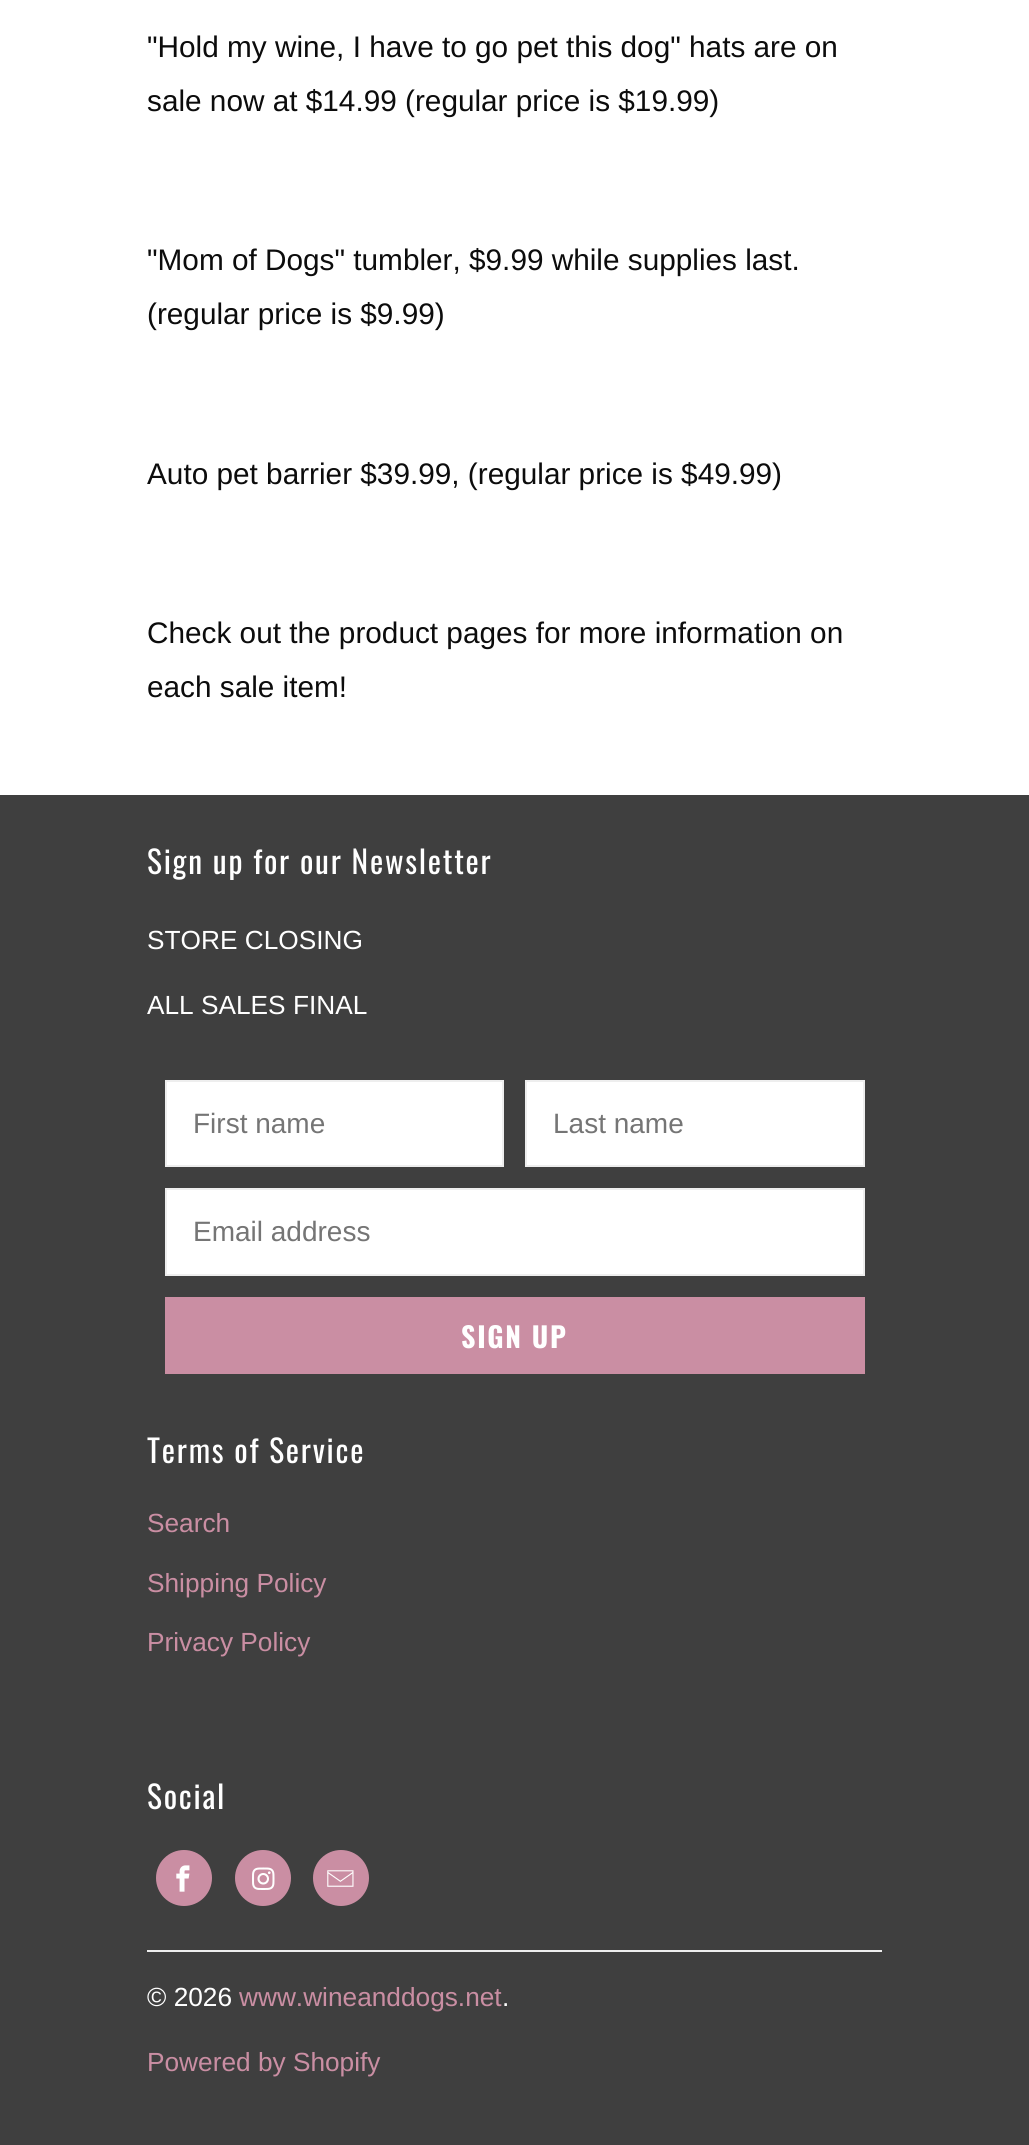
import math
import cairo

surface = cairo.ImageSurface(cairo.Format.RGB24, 1029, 2145)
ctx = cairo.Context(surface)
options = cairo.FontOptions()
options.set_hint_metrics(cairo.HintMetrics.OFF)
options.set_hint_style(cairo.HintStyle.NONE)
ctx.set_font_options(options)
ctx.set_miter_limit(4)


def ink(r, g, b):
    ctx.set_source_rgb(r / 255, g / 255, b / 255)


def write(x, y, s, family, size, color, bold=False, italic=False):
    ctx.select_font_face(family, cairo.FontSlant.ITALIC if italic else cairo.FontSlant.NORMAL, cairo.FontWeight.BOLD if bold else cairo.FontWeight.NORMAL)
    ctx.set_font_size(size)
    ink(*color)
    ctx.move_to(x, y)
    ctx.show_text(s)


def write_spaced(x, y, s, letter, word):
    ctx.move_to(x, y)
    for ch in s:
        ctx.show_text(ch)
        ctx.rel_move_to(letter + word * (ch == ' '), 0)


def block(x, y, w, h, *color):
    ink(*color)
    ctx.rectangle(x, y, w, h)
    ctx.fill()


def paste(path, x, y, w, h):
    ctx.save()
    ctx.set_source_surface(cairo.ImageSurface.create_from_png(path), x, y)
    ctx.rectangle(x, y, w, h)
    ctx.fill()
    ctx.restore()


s1 = dict(family="Liberation Sans", size=29.75, color=(12, 12, 12))
s2 = dict(family="Liberation Sans", size=26.25, color=(255, 255, 255))
s3 = dict(family="Liberation Sans", size=28, color=(117, 117, 117))
s4 = dict(family="Liberation Sans", size=26.25, color=(202, 142, 163))

ink(255, 255, 255)
ctx.paint()
write(147, 57, "\"Hold my wine, I have to go pet this dog\" hats are on", **s1)
write(147, 111, "sale now at $14.99 (regular price is $19.99)", **s1)
write(147, 270, "\"Mom of Dogs\" tumbler, $9.99 while supplies last.", **s1)
write(147, 324, "(regular price is $9.99)", **s1)
write(147, 484, "Auto pet barrier $39.99, (regular price is $49.99)", **s1)
write(147, 643, "Check out the product pages for more information on", **s1)
write(147, 697, "each sale item!", **s1)
block(0, 795, 1029, 1350, 63, 63, 63)
ctx.select_font_face("Oswald")
ctx.set_font_size(31.5)
ink(255, 255, 255)
write_spaced(147, 874, "Sign up for our Newsletter", 1.75, 0)
write(147, 949, "STORE CLOSING", **s2)
write(147, 1014, "ALL SALES FINAL", **s2)
ctx.rectangle(166, 1081, 337, 85)
ctx.fill_preserve()
ink(238, 238, 238)
ctx.stroke()
write(193, 1133, "First name", **s3)
ink(255, 255, 255)
ctx.rectangle(526, 1081, 338, 85)
ctx.fill_preserve()
ink(238, 238, 238)
ctx.stroke()
write(553, 1133, "Last name", **s3)
ink(255, 255, 255)
ctx.rectangle(166, 1189, 698, 86)
ctx.fill_preserve()
ink(238, 238, 238)
ctx.stroke()
write(193, 1241, "Email address", **s3)
block(165, 1297, 700, 77, 202, 142, 163)
ctx.select_font_face("Oswald", cairo.FontSlant.NORMAL, cairo.FontWeight.BOLD)
ink(255, 255, 255)
write_spaced(461, 1348, "SIGN UP", 1.75, 0)
ctx.select_font_face("Oswald")
ctx.set_font_size(31.5)
write_spaced(147, 1463, "Terms of Service", 1.75, 0)
write(147, 1532, "Search", **s4)
write(147, 1592, "Shipping Policy", **s4)
write(147, 1651, "Privacy Policy", **s4)
ctx.select_font_face("Oswald")
ctx.set_font_size(31.5)
ink(255, 255, 255)
write_spaced(147, 1809, "Social", 1.75, 0)
ink(202, 142, 163)
ctx.new_path()
ctx.arc(184, 1878, 28, 0, 2 * math.pi)
ctx.fill()
paste("pic1.png", 176, 1865, 14, 27)
ctx.arc(263, 1878, 28, 0, 2 * math.pi)
ctx.fill()
paste("pic2.png", 252, 1867, 23, 23)
ctx.arc(341, 1878, 28, 0, 2 * math.pi)
ctx.fill()
paste("pic3.png", 327, 1870, 27, 17)
block(147, 1950, 735, 2, 238, 238, 238)
write(147, 2006, "© 2026", **s2)
write(239, 2006, "www.wineanddogs.net", **s4)
write(502, 2006, ".", **s2)
write(147, 2071, "Powered by Shopify", **s4)
surface.write_to_png("screenshot.png")
